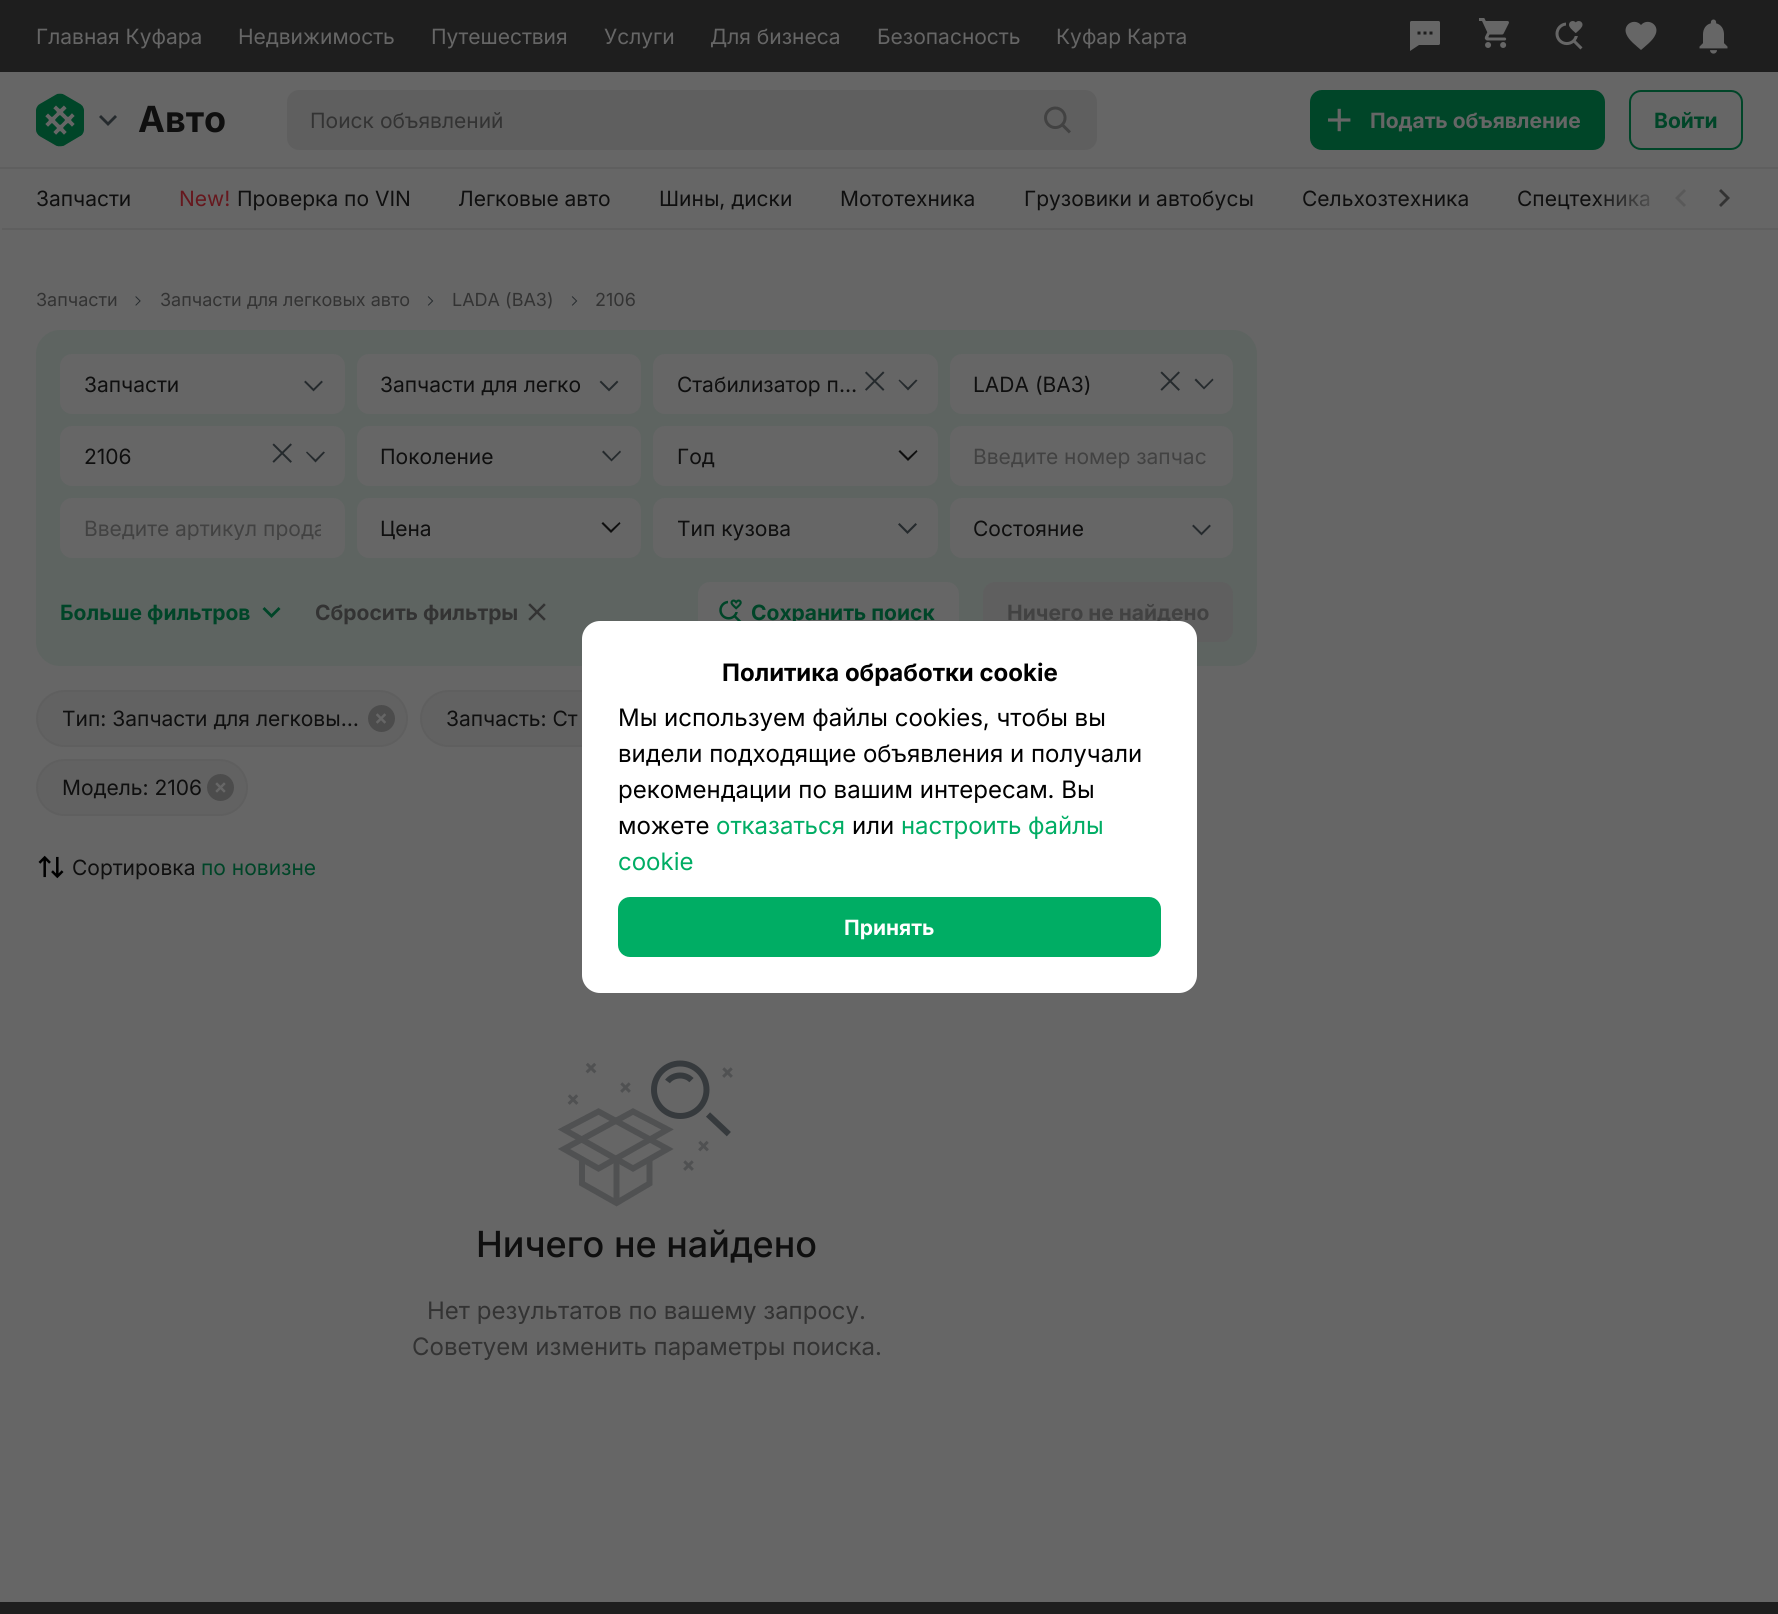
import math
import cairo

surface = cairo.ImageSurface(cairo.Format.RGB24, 1778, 1614)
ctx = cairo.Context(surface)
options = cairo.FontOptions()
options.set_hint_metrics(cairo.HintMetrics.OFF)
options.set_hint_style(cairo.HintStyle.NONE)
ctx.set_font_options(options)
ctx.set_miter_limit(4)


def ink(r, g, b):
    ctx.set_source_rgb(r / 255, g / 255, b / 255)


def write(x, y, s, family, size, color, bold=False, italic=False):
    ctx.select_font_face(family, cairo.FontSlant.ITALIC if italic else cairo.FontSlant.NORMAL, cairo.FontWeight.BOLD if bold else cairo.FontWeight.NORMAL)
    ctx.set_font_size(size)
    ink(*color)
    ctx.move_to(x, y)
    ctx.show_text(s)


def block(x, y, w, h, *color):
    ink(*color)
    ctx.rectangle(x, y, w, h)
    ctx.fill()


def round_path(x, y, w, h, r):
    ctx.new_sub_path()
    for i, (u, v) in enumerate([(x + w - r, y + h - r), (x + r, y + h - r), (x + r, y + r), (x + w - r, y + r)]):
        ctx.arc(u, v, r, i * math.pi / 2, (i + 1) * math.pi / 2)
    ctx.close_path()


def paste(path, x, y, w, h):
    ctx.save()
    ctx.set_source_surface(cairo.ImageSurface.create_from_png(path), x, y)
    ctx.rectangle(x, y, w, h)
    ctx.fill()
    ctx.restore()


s1 = dict(family="Inter", size=21, color=(102, 102, 102))
s2 = dict(family="Inter", size=36, color=(15, 15, 15), bold=True)
s3 = dict(family="Inter", size=21, color=(51, 51, 51))
s4 = dict(family="Inter", size=21, color=(102, 102, 102), bold=True)
s5 = dict(family="Inter", size=21, color=(0, 69, 40), bold=True)
s6 = dict(family="Inter", size=21, color=(15, 15, 15))
s7 = dict(family="Inter", size=21, color=(102, 24, 30))
s8 = dict(family="Inter", size=18, color=(51, 51, 51))
s9 = dict(family="Inter", size=21, color=(66, 66, 66))
s10 = dict(family="Inter", size=21, color=(51, 51, 51), bold=True)
s11 = dict(family="Inter", size=21, color=(66, 66, 66), bold=True)
s12 = dict(family="Inter", size=21, color=(0, 69, 40))
s13 = dict(family="Inter Medium", size=36, color=(15, 15, 15))
s14 = dict(family="Inter", size=24, color=(51, 51, 51))
s15 = dict(family="Inter", size=24, color=(0, 0, 0), bold=True)
s16 = dict(family="Inter", size=24, color=(0, 0, 0))
s17 = dict(family="Inter", size=24, color=(0, 173, 100))
s18 = dict(family="Inter", size=21, color=(255, 255, 255), bold=True)

ink(102, 102, 102)
ctx.paint()
block(0, 0, 1778, 72, 30, 30, 30)
write(36, 44, "Главная Куфара", **s1)
write(238, 44, "Недвижимость", **s1)
write(431, 44, "Путешествия", **s1)
write(604, 44, "Услуги", **s1)
write(710, 44, "Для бизнеса", **s1)
write(877, 44, "Безопасность", **s1)
write(1056, 44, "Куфар Карта", **s1)
paste("pic1.png", 1410, 21, 30, 30)
paste("pic2.png", 1479, 18, 30, 30)
paste("pic3.png", 1555, 21, 28, 29)
ctx.new_path()
ctx.move_to(1641, 50)
ctx.curve_to(1636, 45.5, 1629, 40.5, 1626.5, 34.5)
ctx.curve_to(1622, 24.5, 1634.5, 17.5, 1641, 25)
ctx.curve_to(1647.5, 17.5, 1660, 24.5, 1655.5, 34.5)
ctx.curve_to(1653, 40.5, 1646, 45.5, 1641, 50)
ctx.close_path()
ctx.fill()
paste("pic4.png", 1699, 19, 29, 35)
block(0, 167, 1778, 2, 95, 95, 95)
paste("pic5.png", 36, 93, 48, 54)
ink(37, 42, 45)
ctx.set_fill_rule(cairo.FillRule.EVEN_ODD)
ctx.new_path()
ctx.move_to(115, 115)
ctx.line_to(117, 117)
ctx.line_to(108, 126)
ctx.line_to(99, 117)
ctx.line_to(101, 115)
ctx.line_to(108, 122)
ctx.close_path()
ctx.fill()
write(138, 132, "Авто", **s2)
ink(95, 95, 95)
round_path(287, 90, 810, 60, 12)
ctx.fill()
write(310, 128, "Поиск объявлений", **s3)
paste("pic6.png", 1044, 106, 27, 28)
ink(0, 69, 40)
round_path(1310, 90, 295, 60, 12)
ctx.fill()
paste("pic7.png", 1328, 108, 23, 24)
write(1370, 128, "Подать объявление", **s4)
round_path(1630, 91, 112, 58, 11)
ink(0, 69, 40)
ctx.stroke()
write(1654, 128, "Войти", **s5)
ink(95, 95, 95)
ctx.set_fill_rule(cairo.FillRule.WINDING)
ctx.new_path()
ctx.move_to(2, 228)
ctx.line_to(2, 230)
ctx.line_to(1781, 230)
ctx.line_to(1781, 170)
ctx.line_to(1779, 170)
ctx.line_to(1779, 228)
ctx.close_path()
ctx.fill()
write(36, 206, "Запчасти", **s6)
write(179, 206, "New!", **s7)
write(237, 206, "Проверка по VIN", **s6)
write(458, 206, "Легковые авто", **s6)
write(659, 206, "Шины, диски", **s6)
write(840, 206, "Мототехника", **s6)
write(1024, 206, "Грузовики и автобусы", **s6)
write(1302, 206, "Сельхозтехника", **s6)
write(1517, 206, "Спецтехника", **s6)
ink(89, 89, 89)
ctx.new_path()
ctx.move_to(1686, 205)
ctx.line_to(1679, 198)
ctx.line_to(1686, 191)
ctx.line_to(1684, 189)
ctx.line_to(1675, 198)
ctx.line_to(1684, 207)
ctx.close_path()
ctx.fill()
ink(51, 51, 51)
ctx.new_path()
ctx.move_to(1719, 191)
ctx.line_to(1726, 198)
ctx.line_to(1719, 205)
ctx.line_to(1721, 207)
ctx.line_to(1730, 198)
ctx.line_to(1721, 189)
ctx.close_path()
ctx.fill()
gradient = cairo.LinearGradient(1595, 197, 1745, 197)
gradient.add_color_stop_rgba(0, 0.4, 0.4, 0.4, 0)
gradient.add_color_stop_rgba(0.5, 0.4, 0.4, 0.4, 1)
gradient.add_color_stop_rgba(1, 0.4, 0.4, 0.4, 1)
ctx.set_source(gradient)
ctx.rectangle(1598, 194, 52, 13)
ctx.fill()
write(36, 306, "Запчасти", **s8)
paste("pic8.png", 135, 296, 6, 10)
write(160, 306, "Запчасти для легковых авто", **s8)
paste("pic9.png", 427, 296, 7, 10)
write(452, 306, "LADA (ВАЗ)", **s8)
paste("pic9.png", 571, 296, 7, 10)
write(595, 306, "2106", **s8)
ink(94, 100, 97)
round_path(36, 330, 1221, 336, 24)
ctx.fill()
ink(102, 102, 102)
round_path(60, 354, 285, 60, 12)
ctx.fill()
write(84, 392, "Запчасти", **s6)
ctx.new_path()
ctx.move_to(305.5, 382)
ctx.line_to(313.5, 390)
ctx.line_to(321.5, 382)
ink(37, 42, 45)
ctx.set_line_cap(cairo.LineCap.SQUARE)
ctx.stroke()
ink(102, 102, 102)
round_path(357, 354, 284, 60, 12)
ctx.fill()
write(380, 392, "Запчасти для легко", **s6)
ctx.new_path()
ctx.move_to(601, 382)
ctx.line_to(609, 390)
ctx.line_to(617, 382)
ink(37, 42, 45)
ctx.stroke()
ink(102, 102, 102)
round_path(653, 354, 285, 60, 12)
ctx.fill()
write(677, 392, "Стабилизатор п…", **s6)
paste("pic10.png", 865, 371, 20, 20)
ink(37, 42, 45)
ctx.set_fill_rule(cairo.FillRule.EVEN_ODD)
ctx.new_path()
ctx.move_to(908, 387.5)
ctx.line_to(899.5, 379.5)
ctx.line_to(898.5, 380.5)
ctx.line_to(908, 390.5)
ctx.line_to(917.5, 380.5)
ctx.line_to(916, 379.5)
ctx.close_path()
ctx.fill()
ink(102, 102, 102)
round_path(950, 354, 283, 60, 12)
ctx.fill()
write(973, 392, "LADA (ВАЗ)", **s6)
paste("pic11.png", 1160, 371, 20, 20)
ink(37, 42, 45)
ctx.new_path()
ctx.move_to(1204, 387)
ctx.line_to(1196, 378.5)
ctx.line_to(1194.5, 380)
ctx.line_to(1204, 389.5)
ctx.line_to(1213.5, 380)
ctx.line_to(1212.5, 378.5)
ctx.close_path()
ctx.fill()
ink(102, 102, 102)
round_path(60, 426, 285, 60, 12)
ctx.fill()
write(84, 464, "2106", **s6)
paste("pic11.png", 272, 443, 20, 20)
ink(37, 42, 45)
ctx.new_path()
ctx.move_to(315.5, 459.5)
ctx.line_to(307, 451.5)
ctx.line_to(306, 452.5)
ctx.line_to(315.5, 462.5)
ctx.line_to(325, 452.5)
ctx.line_to(323.5, 451.5)
ctx.close_path()
ctx.fill()
ink(102, 102, 102)
round_path(357, 426, 284, 60, 12)
ctx.fill()
write(380, 464, "Поколение", **s6)
ink(37, 42, 45)
ctx.new_path()
ctx.move_to(611.5, 459)
ctx.line_to(603.5, 450.5)
ctx.line_to(602, 452)
ctx.line_to(611.5, 461.5)
ctx.line_to(621, 452)
ctx.line_to(620, 450.5)
ctx.close_path()
ctx.fill()
ink(102, 102, 102)
round_path(653, 426, 285, 60, 12)
ctx.fill()
write(677, 464, "Год", **s6)
ctx.new_path()
ctx.move_to(908, 458)
ctx.line_to(900, 450)
ctx.line_to(898.5, 451.5)
ctx.line_to(908, 461)
ctx.line_to(917.5, 451.5)
ctx.line_to(916.5, 450)
ctx.close_path()
ctx.fill()
ink(102, 102, 102)
round_path(950, 426, 283, 60, 12)
ctx.fill()
write(973, 464, "Введите номер запчас", **s9)
ink(102, 102, 102)
round_path(60, 498, 285, 60, 12)
ctx.fill()
ctx.save()
ctx.set_fill_rule(cairo.FillRule.WINDING)
ctx.rectangle(84, 515, 237, 25)
ctx.clip()
write(84, 536, "Введите артикул прода", **s9)
ctx.restore()
round_path(357, 498, 284, 60, 12)
ctx.fill()
write(380, 536, "Цена", **s6)
ctx.new_path()
ctx.move_to(611, 530)
ctx.line_to(603, 522)
ctx.line_to(601.5, 523.5)
ctx.line_to(611, 533)
ctx.line_to(620.5, 523.5)
ctx.line_to(619.5, 522)
ctx.close_path()
ctx.fill()
ink(102, 102, 102)
round_path(653, 498, 285, 60, 12)
ctx.fill()
write(677, 536, "Тип кузова", **s6)
ink(37, 42, 45)
ctx.new_path()
ctx.move_to(907.5, 531)
ctx.line_to(899.5, 523)
ctx.line_to(898, 524.5)
ctx.line_to(907.5, 534)
ctx.line_to(917, 524.5)
ctx.line_to(915.5, 523)
ctx.close_path()
ctx.fill()
ink(102, 102, 102)
round_path(950, 498, 283, 60, 12)
ctx.fill()
write(973, 536, "Состояние", **s6)
ctx.new_path()
ctx.move_to(1193.5, 526)
ctx.line_to(1201.5, 534)
ctx.line_to(1209.5, 526)
ink(37, 42, 45)
ctx.stroke()
write(60, 620, "Больше фильтров", **s5)
ctx.new_path()
ctx.move_to(264.5, 607)
ctx.line_to(271.5, 614)
ctx.line_to(278.5, 607)
ctx.line_to(280.5, 609)
ctx.line_to(271.5, 618)
ctx.line_to(262.5, 609)
ctx.close_path()
ctx.fill()
write(315, 620, "Сбросить фильтры", **s10)
paste("pic12.png", 528, 603, 18, 18)
ink(102, 102, 102)
round_path(698, 582, 261, 60, 12)
ctx.fill()
paste("pic13.png", 719, 599, 23, 22)
write(751, 620, "Сохранить поиск", **s5)
ink(95, 95, 95)
round_path(983, 582, 250, 60, 12)
ctx.fill()
write(1007, 620, "Ничего не найдено", **s11)
ink(98, 98, 98)
round_path(37, 691, 370, 55, 27.5)
ctx.fill_preserve()
ink(95, 95, 95)
ctx.set_line_cap(cairo.LineCap.BUTT)
ctx.stroke()
write(62, 726, "Тип: Запчасти для легковы…", **s6)
ink(76, 76, 76)
ctx.new_path()
ctx.arc(381.5, 718.5, 13.5, 0, 2 * math.pi)
ctx.fill()
paste("pic14.png", 376, 713, 10, 11)
ink(98, 98, 98)
round_path(421, 691, 370, 55, 27.5)
ctx.fill_preserve()
ink(95, 95, 95)
ctx.stroke()
write(446, 726, "Запчасть: Ст", **s6)
ink(98, 98, 98)
round_path(37, 760, 210, 55, 27.5)
ctx.fill_preserve()
ink(95, 95, 95)
ctx.stroke()
write(62, 795, "Модель: 2106", **s6)
ink(76, 76, 76)
ctx.new_path()
ctx.arc(220.5, 787.5, 13.5, 0, 2 * math.pi)
ctx.fill()
paste("pic15.png", 215, 782, 11, 11)
paste("pic16.png", 38, 855, 26, 24)
write(72, 875, "Сортировка", **s6)
write(201, 875, "по новизне", **s12)
paste("pic17.png", 558, 1060, 175, 147)
write(476, 1257, "Ничего не найдено", **s13)
write(427, 1319, "Нет результатов по вашему запросу.", **s14)
write(412, 1355, "Советуем изменить параметры поиска.", **s14)
block(0, 1602, 1778, 12, 30, 30, 30)
ink(255, 255, 255)
round_path(582, 621, 615, 372, 18)
ctx.fill()
write(722, 681, "Политика обработки cookie", **s15)
write(618, 726, "Мы используем файлы cookies, чтобы вы", **s16)
write(618, 762, "видели подходящие объявления и получали", **s16)
write(618, 798, "рекомендации по вашим интересам. Вы", **s16)
write(618, 834, "можете", **s16)
write(716, 834, "отказаться", **s17)
write(852, 834, "или", **s16)
write(901, 834, "настроить файлы", **s17)
write(618, 870, "cookie", **s17)
round_path(618, 897, 543, 60, 12)
ctx.fill()
write(844, 935, "Принять", **s18)
surface.write_to_png("screenshot.png")
